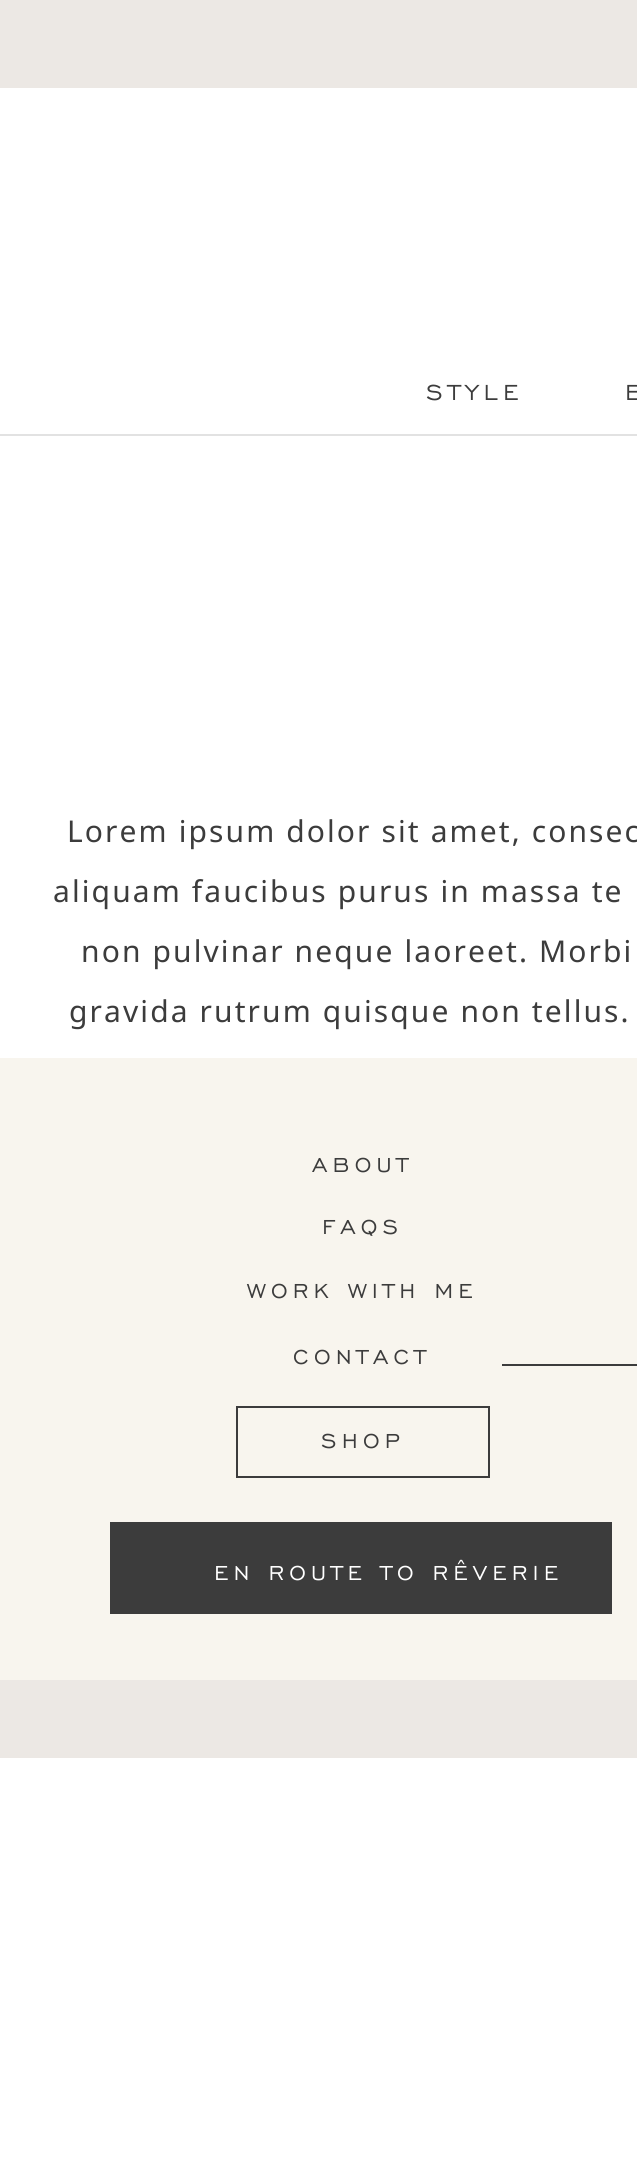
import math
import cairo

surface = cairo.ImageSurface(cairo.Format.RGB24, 637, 2183)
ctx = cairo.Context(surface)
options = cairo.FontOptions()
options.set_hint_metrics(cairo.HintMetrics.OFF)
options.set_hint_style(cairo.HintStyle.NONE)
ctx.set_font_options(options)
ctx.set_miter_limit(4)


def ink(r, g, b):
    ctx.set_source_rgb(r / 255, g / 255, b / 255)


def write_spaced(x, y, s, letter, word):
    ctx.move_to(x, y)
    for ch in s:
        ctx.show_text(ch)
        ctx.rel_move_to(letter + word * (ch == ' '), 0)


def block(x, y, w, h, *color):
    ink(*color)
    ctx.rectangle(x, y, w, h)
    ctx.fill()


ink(255, 255, 255)
ctx.paint()
block(0, 0, 637, 88, 236, 232, 228)
ctx.select_font_face("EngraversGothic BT")
ctx.set_font_size(28)
ink(60, 60, 60)
write_spaced(426, 400, "STYLE", 5.5, 0)
write_spaced(625, 400, "B", 5.5, 0)
block(0, 434, 637, 2, 226, 226, 226)
ctx.select_font_face("Noto Sans")
ctx.set_font_size(30)
ink(60, 60, 60)
write_spaced(67, 842, "Lorem ipsum dolor sit amet, consec", 2.1, 0)
write_spaced(53, 902, "aliquam faucibus purus in massa te", 2.1, 0)
write_spaced(81, 962, "non pulvinar neque laoreet. Morbi", 2.1, 0)
write_spaced(69, 1022, "gravida rutrum quisque non tellus.", 2.1, 0)
block(0, 1058, 637, 622, 248, 245, 238)
ctx.select_font_face("EngraversGothic BT")
ctx.set_font_size(26)
ink(60, 60, 60)
write_spaced(312, 1172, "ABOUT", 5.25, 0)
write_spaced(322, 1234, "FAQS", 5.25, 0)
write_spaced(247, 1298, "WORK WITH ME", 5.25, 0)
write_spaced(293, 1364, "CONTACT", 5.25, 0)
block(502, 1364, 135, 2, 60, 60, 60)
ctx.rectangle(237, 1407, 252, 70)
ctx.stroke()
write_spaced(321, 1448, "SHOP", 5.25, 0)
block(110, 1522, 502, 92, 60, 60, 60)
ink(255, 255, 255)
write_spaced(214, 1580, "EN ROUTE TO RÊVERIE", 5.25, 0)
block(0, 1680, 637, 78, 236, 232, 228)
surface.write_to_png("screenshot.png")
